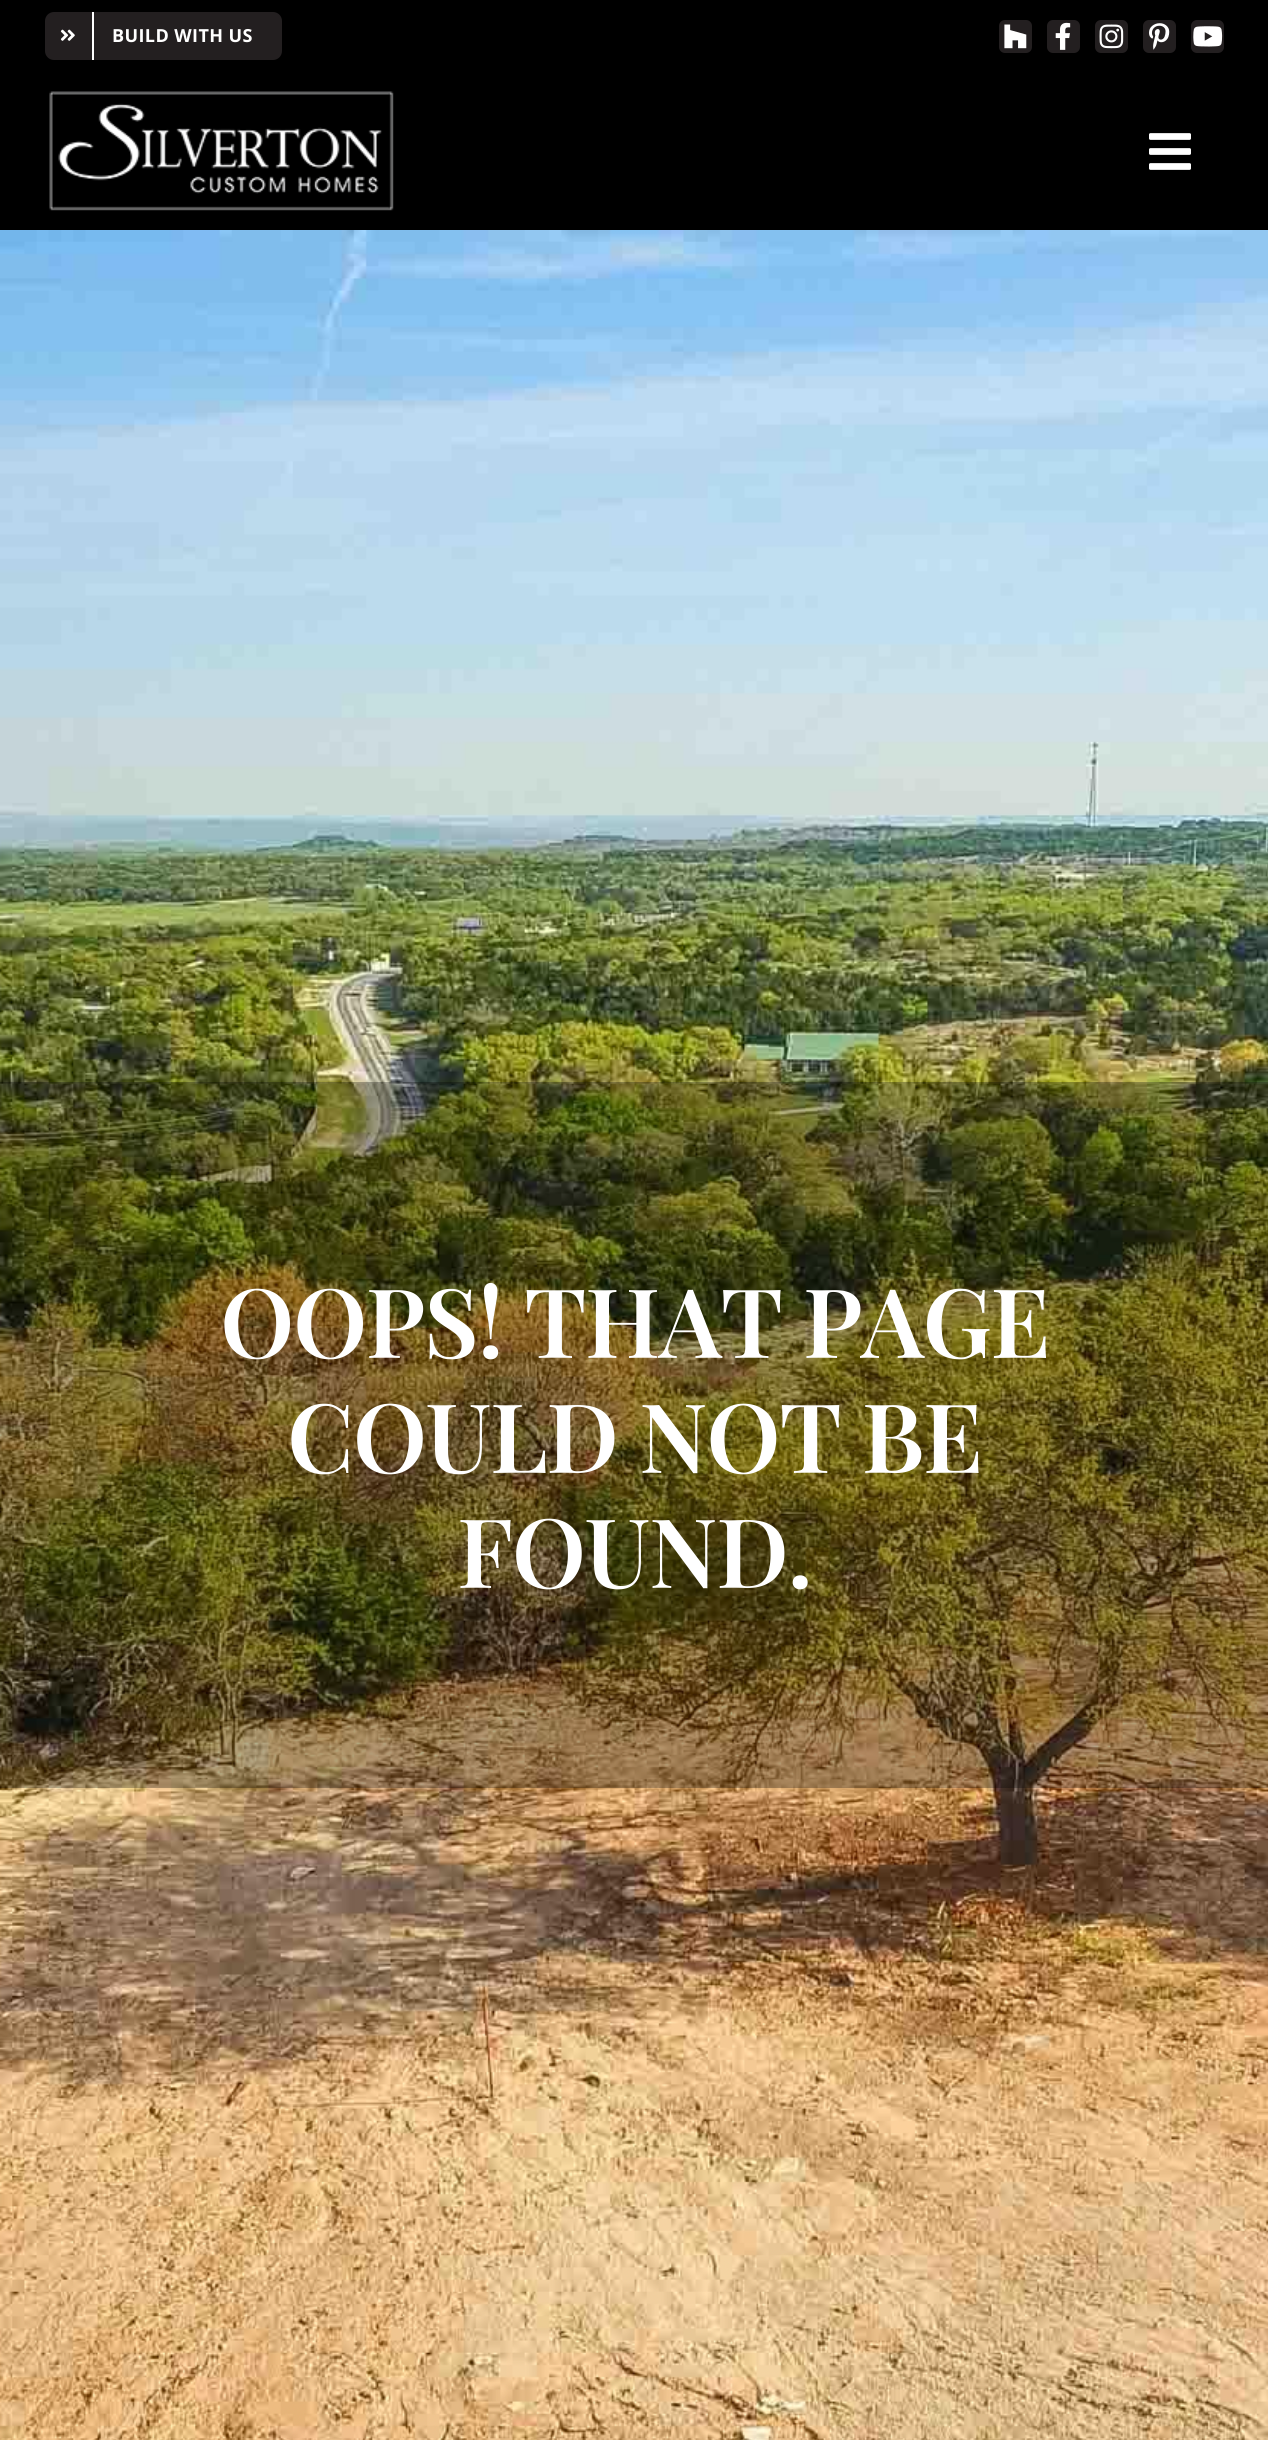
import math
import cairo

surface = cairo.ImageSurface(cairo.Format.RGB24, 1268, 2440)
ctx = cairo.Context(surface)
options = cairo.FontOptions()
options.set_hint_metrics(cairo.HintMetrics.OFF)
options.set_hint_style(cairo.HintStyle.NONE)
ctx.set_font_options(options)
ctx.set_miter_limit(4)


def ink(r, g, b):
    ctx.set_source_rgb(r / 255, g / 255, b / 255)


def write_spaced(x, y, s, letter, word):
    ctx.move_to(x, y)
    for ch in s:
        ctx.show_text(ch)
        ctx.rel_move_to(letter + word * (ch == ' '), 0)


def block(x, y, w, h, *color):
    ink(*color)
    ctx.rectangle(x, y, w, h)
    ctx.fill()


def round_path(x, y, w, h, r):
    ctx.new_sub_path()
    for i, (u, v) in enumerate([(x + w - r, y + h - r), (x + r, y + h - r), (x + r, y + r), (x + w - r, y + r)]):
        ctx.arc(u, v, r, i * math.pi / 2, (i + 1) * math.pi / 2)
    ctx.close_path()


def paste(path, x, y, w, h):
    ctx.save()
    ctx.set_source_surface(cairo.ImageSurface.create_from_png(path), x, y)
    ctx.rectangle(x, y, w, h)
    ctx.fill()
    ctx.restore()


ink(0, 0, 0)
ctx.paint()
ink(35, 31, 32)
round_path(45, 12, 237, 48, 9)
ctx.fill()
block(92, 12, 2, 48, 255, 255, 255)
paste("pic1.png", 60, 29, 15, 12)
ctx.select_font_face("Open Sans", cairo.FontSlant.NORMAL, cairo.FontWeight.BOLD)
ctx.set_font_size(18)
write_spaced(112, 42, "BUILD WITH US", 0.4, 0)
ink(35, 31, 32)
round_path(999, 20, 33, 33, 6)
ctx.fill()
paste("pic2.png", 1004, 24, 23, 25)
round_path(1047, 20, 33, 33, 6)
ctx.fill()
paste("pic3.png", 1055, 22, 16, 28)
round_path(1095, 20, 33, 33, 6)
ctx.fill()
paste("pic4.png", 1099, 24, 25, 25)
round_path(1143, 20, 33, 33, 6)
ctx.fill()
paste("pic5.png", 1149, 23, 21, 27)
round_path(1191, 20, 33, 33, 6)
ctx.fill()
paste("pic6.png", 1193, 26, 30, 21)
paste("pic7.png", 49, 91, 345, 120)
paste("pic8.png", 1149, 133, 42, 37)
paste("pic9.png", 0, 230, 1268, 2210)
ctx.set_source_rgba(0, 0, 0, 0.3)
ctx.rectangle(0, 1082, 1268, 706)
ctx.fill()
ctx.select_font_face("Playfair Display SemiBold")
ctx.set_font_size(96)
ink(255, 255, 255)
write_spaced(220, 1358, "OOPS! THAT PAGE", -1.5, 0)
write_spaced(287, 1473, "COULD NOT BE", -1.5, 0)
write_spaced(457, 1588, "FOUND.", -1.5, 0)
surface.write_to_png("screenshot.png")
